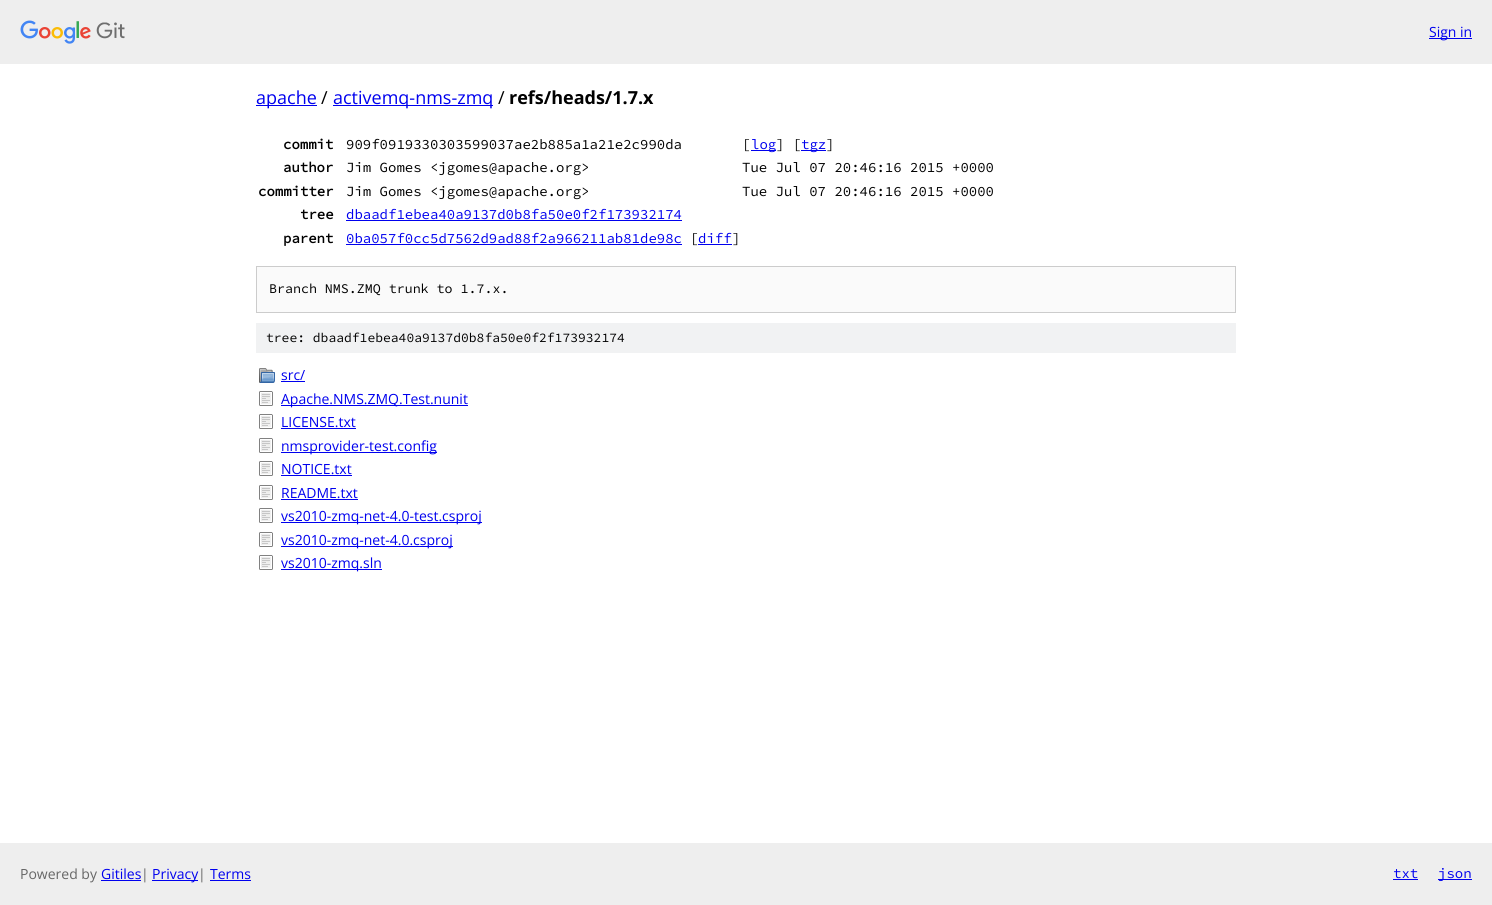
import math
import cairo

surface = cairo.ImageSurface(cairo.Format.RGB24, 1492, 905)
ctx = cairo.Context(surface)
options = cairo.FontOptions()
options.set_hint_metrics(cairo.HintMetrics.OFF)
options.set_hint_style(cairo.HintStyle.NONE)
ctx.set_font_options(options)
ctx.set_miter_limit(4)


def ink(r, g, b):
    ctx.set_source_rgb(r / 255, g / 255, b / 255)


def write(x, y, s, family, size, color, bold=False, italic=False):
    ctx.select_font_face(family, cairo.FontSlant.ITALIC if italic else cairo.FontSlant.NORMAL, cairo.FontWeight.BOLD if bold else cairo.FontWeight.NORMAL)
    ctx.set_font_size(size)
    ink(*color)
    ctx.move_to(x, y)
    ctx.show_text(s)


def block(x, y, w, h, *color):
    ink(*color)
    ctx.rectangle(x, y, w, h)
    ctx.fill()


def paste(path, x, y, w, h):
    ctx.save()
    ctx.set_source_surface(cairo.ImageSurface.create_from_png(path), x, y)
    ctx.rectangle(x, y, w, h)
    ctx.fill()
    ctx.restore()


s1 = dict(family="Open Sans", size=14, color=(0, 0, 238))
s2 = dict(family="Open Sans", size=18, color=(0, 0, 238))
s3 = dict(family="Open Sans", size=18, color=(0, 0, 0))
s4 = dict(family="Open Sans", size=18, color=(0, 0, 0), bold=True)
s5 = dict(family="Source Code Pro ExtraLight", size=14, color=(0, 0, 0), bold=True)
s6 = dict(family="Source Code Pro ExtraLight ExtraLight", size=14, color=(0, 0, 0))
s7 = dict(family="Source Code Pro ExtraLight ExtraLight", size=14, color=(0, 0, 238))
s8 = dict(family="Source Code Pro ExtraLight ExtraLight", size=13.3, color=(0, 0, 0))
s9 = dict(family="Source Code Pro ExtraLight ExtraLight", size=13, color=(0, 0, 0))
s10 = dict(family="Open Sans", size=14, color=(102, 102, 102))

ink(255, 255, 255)
ctx.paint()
block(0, 0, 1492, 64, 238, 238, 238)
paste("pic1.png", 20, 20, 105, 24)
block(1429, 38, 43, 1, 0, 0, 238)
write(1429, 37, "Sign in", **s1)
block(256, 105, 61, 1, 0, 0, 238)
write(256, 104, "apache", **s2)
write(321, 104, "/", **s3)
block(333, 105, 160, 1, 0, 0, 238)
write(333, 104, "activemq-nms-zmq", **s2)
write(498, 104, "/", **s3)
write(509, 104, "refs/heads/1.7.x", **s4)
write(283, 149, "commit", **s5)
write(346, 149, "909f0919330303599037ae2b885a1a21e2c990da", **s6)
write(742, 149, "[", **s6)
block(751, 150, 25, 1, 0, 0, 238)
write(751, 149, "log", **s7)
write(776, 149, "] [", **s6)
block(801, 150, 25, 1, 0, 0, 238)
write(801, 149, "tgz", **s7)
write(826, 149, "]", **s6)
write(283, 172, "author", **s5)
write(346, 172, "Jim Gomes <jgomes@apache.org>", **s6)
write(742, 172, "Tue Jul 07 20:46:16 2015 +0000", **s6)
write(258, 196, "committer", **s5)
write(346, 196, "Jim Gomes <jgomes@apache.org>", **s6)
write(742, 196, "Tue Jul 07 20:46:16 2015 +0000", **s6)
write(300, 219, "tree", **s5)
write(346, 219, "dbaadf1ebea40a9137d0b8fa50e0f2f173932174", **s7)
block(346, 220, 336, 1, 0, 0, 238)
write(283, 243, "parent", **s5)
write(346, 243, "0ba057f0cc5d7562d9ad88f2a966211ab81de98c", **s7)
block(346, 244, 336, 1, 0, 0, 238)
write(690, 243, "[", **s6)
block(698, 244, 34, 1, 0, 0, 238)
write(698, 243, "diff", **s7)
write(732, 243, "]", **s6)
ink(250, 250, 250)
ctx.rectangle(256.5, 266.5, 979, 46)
ctx.fill_preserve()
ink(204, 204, 204)
ctx.set_line_width(1)
ctx.stroke()
write(269, 293, "Branch NMS.ZMQ trunk to 1.7.x.", **s8)
block(256, 323, 980, 30, 241, 242, 243)
write(266, 342, "tree: dbaadf1ebea40a9137d0b8fa50e0f2f173932174", **s9)
paste("pic2.png", 259, 368, 16, 15)
write(281, 380, "src/", **s1)
block(281, 381, 24, 1, 0, 0, 238)
paste("pic3.png", 259, 391, 14, 15)
block(281, 405, 187, 1, 0, 0, 238)
write(281, 404, "Apache.NMS.ZMQ.Test.nunit", **s1)
paste("pic3.png", 259, 414, 14, 15)
write(281, 427, "LICENSE.txt", **s1)
block(281, 428, 75, 1, 0, 0, 238)
paste("pic3.png", 259, 438, 14, 15)
block(281, 452, 156, 1, 0, 0, 238)
write(281, 451, "nmsprovider-test.config", **s1)
paste("pic3.png", 259, 461, 14, 15)
write(281, 474, "NOTICE.txt", **s1)
block(281, 475, 71, 1, 0, 0, 238)
paste("pic3.png", 259, 485, 14, 15)
write(281, 498, "README.txt", **s1)
block(281, 499, 77, 1, 0, 0, 238)
paste("pic3.png", 259, 508, 14, 15)
block(281, 522, 201, 1, 0, 0, 238)
write(281, 521, "vs2010-zmq-net-4.0-test.csproj", **s1)
paste("pic3.png", 259, 532, 14, 15)
block(281, 546, 172, 1, 0, 0, 238)
write(281, 545, "vs2010-zmq-net-4.0.csproj", **s1)
paste("pic3.png", 259, 555, 14, 15)
block(281, 569, 101, 1, 0, 0, 238)
write(281, 568, "vs2010-zmq.sln", **s1)
block(0, 843, 1492, 62, 238, 238, 238)
write(20, 879, "Powered by", **s10)
write(101, 879, "Gitiles", **s1)
block(101, 880, 40, 1, 0, 0, 238)
write(141, 879, "|", **s10)
block(152, 880, 46, 1, 0, 0, 238)
write(152, 879, "Privacy", **s1)
write(198, 879, "|", **s10)
write(210, 879, "Terms", **s1)
block(210, 880, 41, 1, 0, 0, 238)
write(1393, 878, "txt", **s7)
block(1393, 879, 25, 1, 0, 0, 238)
block(1438, 879, 34, 1, 0, 0, 238)
write(1438, 878, "json", **s7)
surface.write_to_png("screenshot.png")
